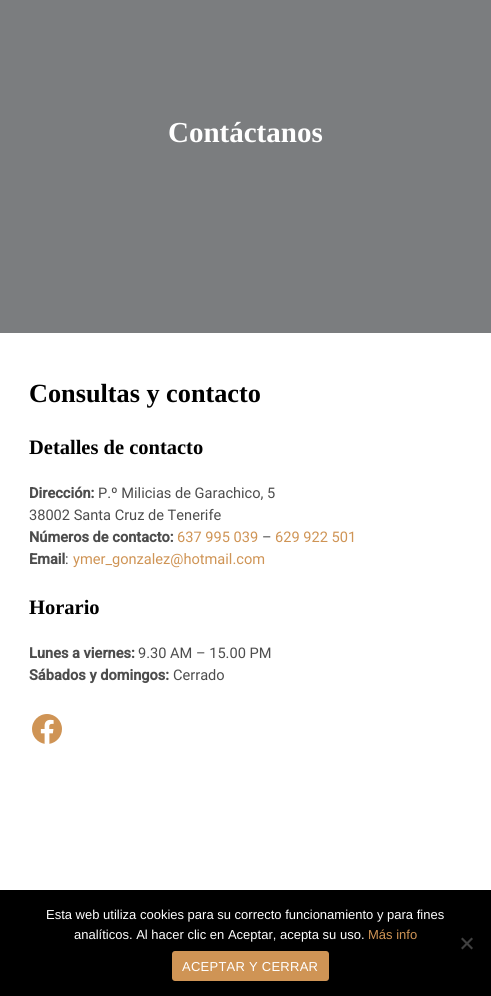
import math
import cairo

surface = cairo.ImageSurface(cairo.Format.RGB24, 491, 996)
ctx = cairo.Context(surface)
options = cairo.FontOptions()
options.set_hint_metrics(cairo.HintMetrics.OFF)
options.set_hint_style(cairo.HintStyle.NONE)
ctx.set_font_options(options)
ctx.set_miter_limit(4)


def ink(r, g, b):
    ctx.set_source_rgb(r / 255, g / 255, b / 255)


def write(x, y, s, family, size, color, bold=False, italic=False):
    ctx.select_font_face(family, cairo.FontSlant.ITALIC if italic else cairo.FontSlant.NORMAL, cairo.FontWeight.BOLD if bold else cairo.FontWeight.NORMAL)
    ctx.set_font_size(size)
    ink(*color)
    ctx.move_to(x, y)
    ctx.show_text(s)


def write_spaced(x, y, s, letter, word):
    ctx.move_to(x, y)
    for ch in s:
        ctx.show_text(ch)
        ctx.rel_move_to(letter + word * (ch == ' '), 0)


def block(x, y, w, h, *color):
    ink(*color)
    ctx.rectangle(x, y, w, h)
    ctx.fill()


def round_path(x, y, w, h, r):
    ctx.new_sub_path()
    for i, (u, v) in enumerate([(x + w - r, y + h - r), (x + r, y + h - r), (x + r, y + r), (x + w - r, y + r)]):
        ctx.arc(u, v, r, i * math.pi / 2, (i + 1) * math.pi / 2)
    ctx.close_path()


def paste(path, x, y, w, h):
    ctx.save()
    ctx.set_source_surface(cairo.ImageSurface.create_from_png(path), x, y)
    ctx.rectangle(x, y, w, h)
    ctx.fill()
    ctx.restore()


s1 = dict(family="Liberation Serif", size=29, color=(255, 255, 255), bold=True)
s2 = dict(family="Liberation Serif", size=26.25, color=(0, 0, 0), bold=True)
s3 = dict(family="Liberation Serif", size=20.5, color=(0, 0, 0), bold=True)
s4 = dict(family="Roboto", size=14.6, color=(77, 77, 77), bold=True)
s5 = dict(family="Roboto", size=14.6, color=(77, 77, 77))
s6 = dict(family="Roboto", size=14.6, color=(207, 148, 85))
s7 = dict(family="Liberation Sans", size=13, color=(255, 255, 255))
s8 = dict(family="Liberation Sans", size=13, color=(207, 148, 85))

ink(255, 255, 255)
ctx.paint()
block(0, 0, 491, 333, 123, 125, 127)
write(168, 142, "Contáctanos", **s1)
write(29, 402, "Consultas y contacto", **s2)
write(29, 454, "Detalles de contacto", **s3)
write(29, 498, "Dirección:", **s4)
write(98, 498, "P.º Milicias de Garachico, 5", **s5)
write(29, 520, "38002 Santa Cruz de Tenerife", **s5)
write(29, 542, "Números de contacto:", **s4)
write(177, 542, "637 995 039", **s6)
write(262, 542, "–", **s5)
write(275, 542, "629 922 501", **s6)
write(29, 564, "Email", **s4)
write(65, 564, ":", **s5)
write(73, 564, "ymer_gonzalez@hotmail.com", **s6)
write(29, 614, "Horario", **s3)
write(29, 658, "Lunes a viernes:", **s4)
write(138, 658, "9.30 AM – 15.00 PM", **s5)
write(29, 680, "Sábados y domingos:", **s4)
write(173, 680, "Cerrado", **s5)
paste("pic1.png", 32, 714, 30, 30)
block(0, 890, 491, 106, 0, 0, 0)
write(46, 919, "Esta web utiliza cookies para su correcto funcionamiento y para fines", **s7)
write(74, 939, "analíticos. Al hacer clic en Aceptar, acepta su uso.", **s7)
write(368, 939, "Más info", **s8)
ink(64, 64, 64)
ctx.new_path()
ctx.move_to(471.5, 937.5)
ctx.line_to(473, 939)
ctx.line_to(462.5, 949.5)
ctx.line_to(461, 948)
ctx.close_path()
ctx.fill()
ctx.new_path()
ctx.move_to(461, 939)
ctx.line_to(462.5, 937.5)
ctx.line_to(473, 948)
ctx.line_to(471.5, 949.5)
ctx.close_path()
ctx.fill()
ink(207, 148, 85)
round_path(172, 951, 157, 30, 3)
ctx.fill()
ink(255, 255, 255)
write_spaced(182, 971, "ACEPTAR Y CERRAR", 0.25, 0)
surface.write_to_png("screenshot.png")
